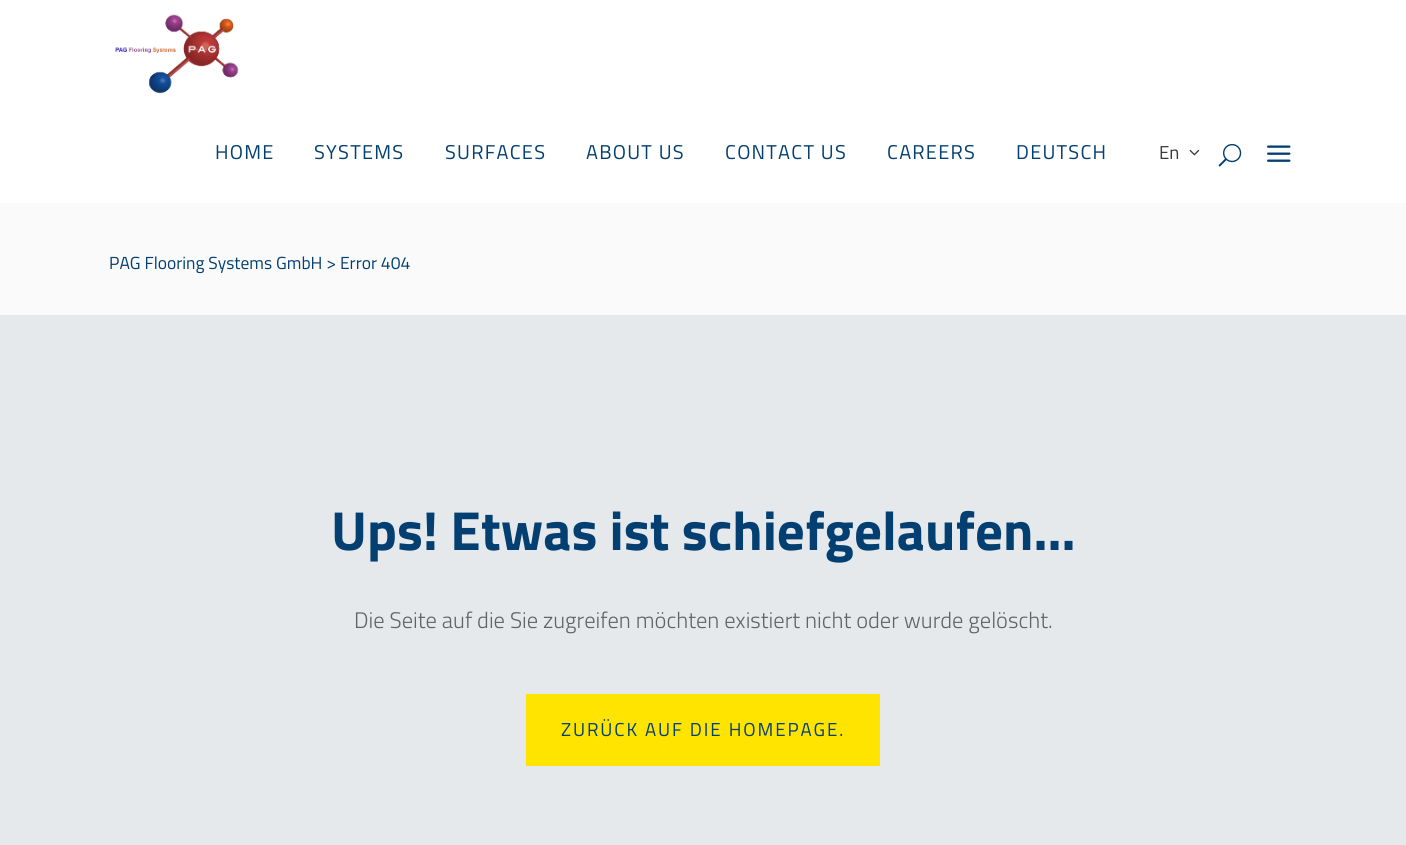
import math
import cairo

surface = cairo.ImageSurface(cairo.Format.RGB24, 1406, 845)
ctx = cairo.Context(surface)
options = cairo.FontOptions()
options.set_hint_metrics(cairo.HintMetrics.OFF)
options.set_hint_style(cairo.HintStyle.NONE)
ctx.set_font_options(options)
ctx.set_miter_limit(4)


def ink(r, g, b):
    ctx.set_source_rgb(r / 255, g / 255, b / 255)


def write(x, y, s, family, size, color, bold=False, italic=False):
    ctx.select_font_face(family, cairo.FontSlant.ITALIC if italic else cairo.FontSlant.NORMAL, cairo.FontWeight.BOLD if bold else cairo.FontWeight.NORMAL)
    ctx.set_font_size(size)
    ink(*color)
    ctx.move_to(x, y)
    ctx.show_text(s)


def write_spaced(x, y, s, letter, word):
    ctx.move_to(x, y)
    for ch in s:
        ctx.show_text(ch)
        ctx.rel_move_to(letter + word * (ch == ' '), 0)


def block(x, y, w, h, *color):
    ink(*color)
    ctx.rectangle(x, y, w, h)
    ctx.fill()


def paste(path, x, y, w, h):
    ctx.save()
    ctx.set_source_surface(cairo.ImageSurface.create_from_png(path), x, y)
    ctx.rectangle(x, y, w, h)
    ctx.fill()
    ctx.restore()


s1 = dict(family="Titillium Web", size=18.75, color=(59, 59, 59))
s2 = dict(family="Titillium Web", size=17.5, color=(4, 63, 113))
s3 = dict(family="Titillium Web", size=55, color=(4, 63, 113), bold=True)
s4 = dict(family="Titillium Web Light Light", size=22.5, color=(99, 99, 99))

ink(255, 255, 255)
ctx.paint()
paste("pic1.png", 115, 14, 124, 80)
ctx.select_font_face("Titillium Web")
ctx.set_font_size(20)
ink(4, 63, 113)
write_spaced(215, 159, "HOME", 1.25, 0)
write_spaced(314, 159, "SYSTEMS", 1.25, 0)
write_spaced(445, 159, "SURFACES", 1.25, 0)
write_spaced(586, 159, "ABOUT US", 1.25, 0)
write_spaced(725, 159, "CONTACT US", 1.25, 0)
write_spaced(887, 159, "CAREERS", 1.25, 0)
write_spaced(1016, 159, "DEUTSCH", 1.25, 0)
write(1159, 159, "En", **s1)
paste("pic2.png", 1189, 149, 11, 7)
paste("pic3.png", 1218, 143, 24, 24)
paste("pic4.png", 1267, 145, 24, 17)
block(0, 315, 1406, 530, 230, 233, 236)
block(0, 203, 1406, 112, 250, 250, 250)
write(109, 269, "PAG Flooring Systems GmbH > Error 404", **s2)
write(331, 550, "Ups! Etwas ist schiefgelaufen...", **s3)
write(354, 628, "Die Seite auf die Sie zugreifen möchten existiert nicht oder wurde gelöscht.", **s4)
block(526, 694, 354, 72, 255, 228, 0)
ctx.select_font_face("Titillium Web")
ctx.set_font_size(18.75)
ink(4, 63, 113)
write_spaced(561, 736, "ZURÜCK AUF DIE HOMEPAGE.", 1.9, 0)
surface.write_to_png("screenshot.png")
